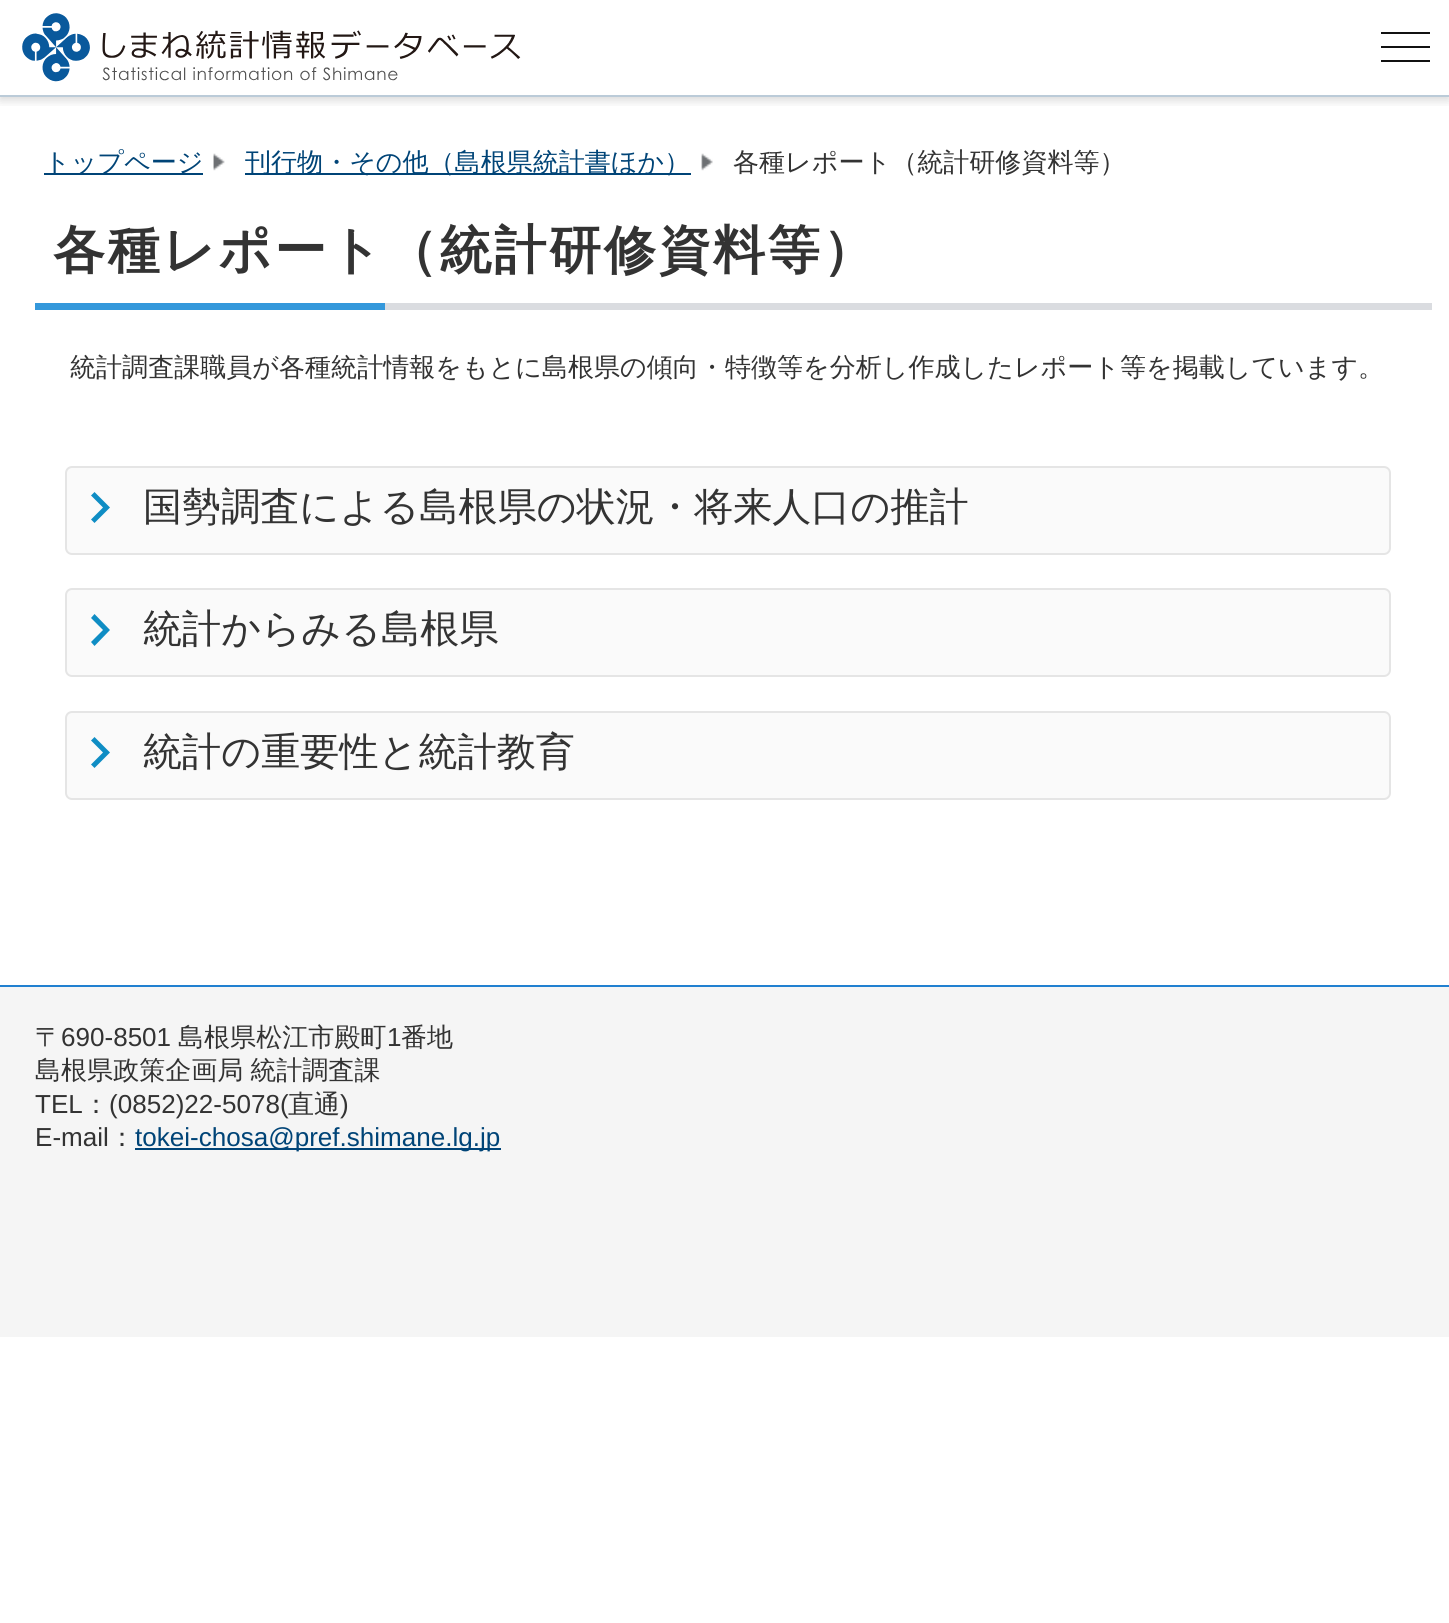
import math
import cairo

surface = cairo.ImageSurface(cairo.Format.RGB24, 1449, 1623)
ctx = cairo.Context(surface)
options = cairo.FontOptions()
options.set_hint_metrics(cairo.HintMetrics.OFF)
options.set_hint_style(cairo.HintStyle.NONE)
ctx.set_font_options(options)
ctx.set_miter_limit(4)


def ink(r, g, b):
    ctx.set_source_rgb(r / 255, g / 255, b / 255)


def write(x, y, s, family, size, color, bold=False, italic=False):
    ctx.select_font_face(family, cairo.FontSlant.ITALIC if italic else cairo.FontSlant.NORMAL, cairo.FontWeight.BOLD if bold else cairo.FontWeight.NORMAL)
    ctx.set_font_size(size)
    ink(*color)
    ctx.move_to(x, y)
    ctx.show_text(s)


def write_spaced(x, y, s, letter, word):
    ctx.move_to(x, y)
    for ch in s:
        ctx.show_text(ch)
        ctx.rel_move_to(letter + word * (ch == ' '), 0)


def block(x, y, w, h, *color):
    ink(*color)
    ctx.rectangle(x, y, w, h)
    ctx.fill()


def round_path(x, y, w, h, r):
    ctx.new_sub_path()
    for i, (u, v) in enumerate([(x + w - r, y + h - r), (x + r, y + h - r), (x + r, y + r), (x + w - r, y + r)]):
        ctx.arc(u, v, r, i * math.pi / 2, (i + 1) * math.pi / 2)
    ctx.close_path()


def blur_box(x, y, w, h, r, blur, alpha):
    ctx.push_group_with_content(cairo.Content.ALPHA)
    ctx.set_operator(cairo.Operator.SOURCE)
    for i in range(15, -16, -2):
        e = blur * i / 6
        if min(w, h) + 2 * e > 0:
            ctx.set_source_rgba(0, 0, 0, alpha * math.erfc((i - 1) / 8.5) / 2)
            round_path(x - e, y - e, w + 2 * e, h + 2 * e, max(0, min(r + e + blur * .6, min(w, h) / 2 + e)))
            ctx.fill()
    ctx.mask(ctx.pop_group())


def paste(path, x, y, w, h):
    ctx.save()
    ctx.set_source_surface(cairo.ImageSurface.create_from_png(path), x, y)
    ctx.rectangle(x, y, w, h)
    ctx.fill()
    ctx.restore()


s1 = dict(family="WenQuanYi Zen Hei Medium", size=26.05, color=(0, 68, 119))
s2 = dict(family="WenQuanYi Zen Hei Medium", size=26.05, color=(51, 51, 51))
s3 = dict(family="WenQuanYi Zen Hei Medium", size=39.1, color=(51, 51, 51))
s4 = dict(family="Liberation Sans", size=26.05, color=(51, 51, 51))
s5 = dict(family="Liberation Sans", size=26.05, color=(0, 68, 119))

ink(255, 255, 255)
ctx.paint()
ctx.save()
ctx.rectangle(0, 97, 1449, 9)
ctx.clip()
ink(0, 0, 0)
blur_box(0, 4, 1449, 96, 0, 5, 0.16)
ctx.restore()
block(0, 95, 1449, 2, 187, 203, 216)
paste("pic1.png", 22, 13, 499, 69)
block(1381, 32, 49, 2, 17, 17, 17)
block(1381, 46, 49, 2, 17, 17, 17)
block(1381, 60, 49, 2, 17, 17, 17)
block(44, 173, 159, 2, 0, 68, 119)
write(44, 171, "トップページ", **s1)
paste("pic2.png", 213, 153, 12, 18)
block(245, 173, 446, 2, 0, 68, 119)
write(245, 171, "刊行物・その他（島根県統計書ほか）", **s1)
paste("pic3.png", 701, 153, 12, 18)
write(733, 171, "各種レポート（統計研修資料等）", **s2)
block(385, 303, 1047, 7, 218, 220, 224)
ctx.select_font_face("WenQuanYi Zen Hei", cairo.FontSlant.NORMAL, cairo.FontWeight.BOLD)
ctx.set_font_size(52.1)
ink(51, 51, 51)
write_spaced(53, 268, "各種レポート（統計研修資料等）", 2.6, 0)
block(35, 303, 350, 7, 52, 152, 219)
write(70, 376, "統計調査課職員が各種統計情報をもとに島根県の傾向・特徴等を分析し作成したレポート等を掲載しています。", **s2)
ink(250, 250, 250)
round_path(66, 467, 1324, 87, 6)
ctx.fill_preserve()
ink(229, 229, 229)
ctx.stroke()
ink(15, 141, 196)
ctx.new_path()
ctx.move_to(91, 519.5)
ctx.line_to(103, 507.5)
ctx.line_to(91, 495.5)
ctx.line_to(94.5, 492)
ctx.line_to(110, 507.5)
ctx.line_to(94.5, 523)
ctx.close_path()
ctx.fill()
write(143, 520, "国勢調査による島根県の状況・将来人口の推計", **s3)
ink(250, 250, 250)
round_path(66, 589, 1324, 87, 6)
ctx.fill_preserve()
ink(229, 229, 229)
ctx.stroke()
ink(15, 141, 196)
ctx.new_path()
ctx.move_to(91, 642)
ctx.line_to(103, 630)
ctx.line_to(91, 618)
ctx.line_to(94.5, 614)
ctx.line_to(110, 630)
ctx.line_to(94.5, 646)
ctx.close_path()
ctx.fill()
write(143, 642, "統計からみる島根県", **s3)
ink(250, 250, 250)
round_path(66, 712, 1324, 87, 6)
ctx.fill_preserve()
ink(229, 229, 229)
ctx.stroke()
ink(15, 141, 196)
ctx.new_path()
ctx.move_to(91, 764.5)
ctx.line_to(103, 752.5)
ctx.line_to(91, 740.5)
ctx.line_to(94.5, 737)
ctx.line_to(110, 752.5)
ctx.line_to(94.5, 768)
ctx.close_path()
ctx.fill()
write(143, 765, "統計の重要性と統計教育", **s3)
block(0, 987, 1449, 350, 245, 245, 245)
block(0, 985, 1449, 2, 33, 128, 208)
write(35, 1046, "〒", **s2)
write(61, 1046, "690-8501", **s4)
write(178, 1046, "島根県松江市殿町", **s2)
write(387, 1046, "1", **s4)
write(401, 1046, "番地", **s2)
write_spaced(35, 1079, "島根県政策企画局 統計調査課", 0, -1)
write(35, 1113, "TEL", **s4)
write(83, 1113, "：", **s2)
write(109, 1113, "(0852)22-5078(", **s4)
write(288, 1113, "直通", **s2)
write(340, 1113, ")", **s4)
write(35, 1146, "E-mail", **s4)
write(109, 1146, "：", **s2)
block(135, 1148, 366, 2, 0, 68, 119)
write(135, 1146, "tokei-chosa@pref.shimane.lg.jp", **s5)
surface.write_to_png("screenshot.png")
